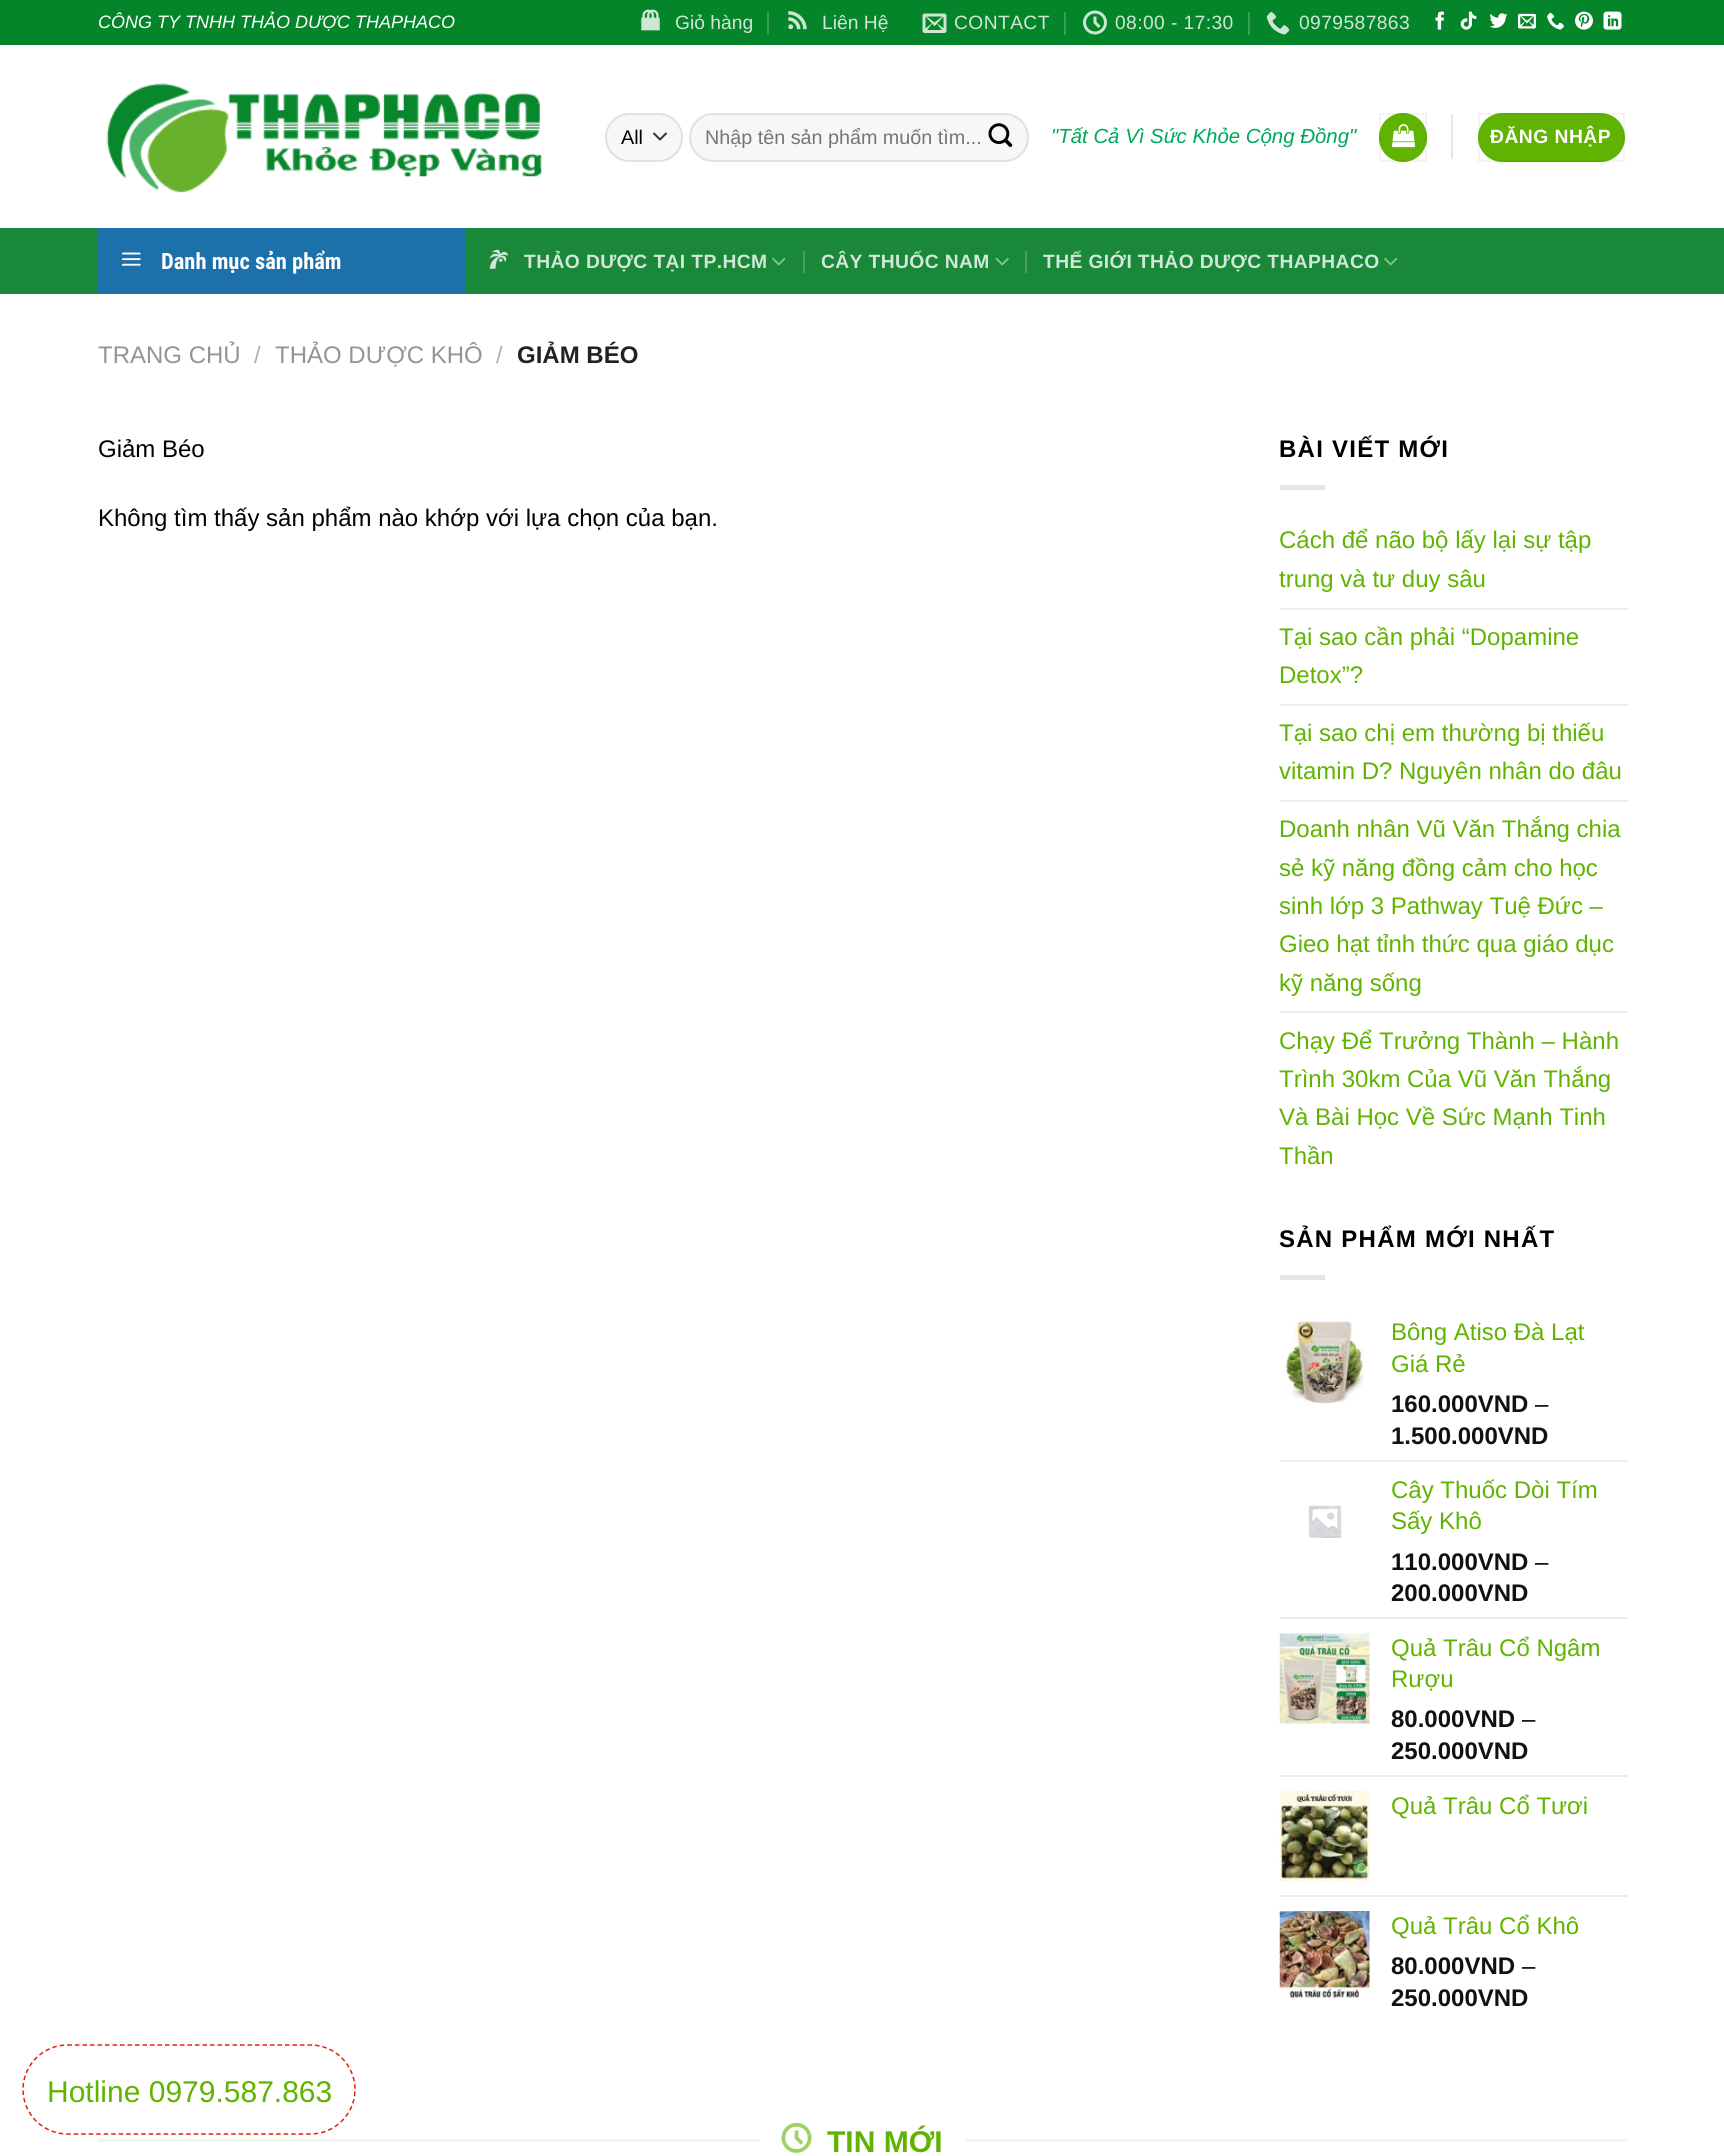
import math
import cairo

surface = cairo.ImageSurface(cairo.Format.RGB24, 1724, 2156)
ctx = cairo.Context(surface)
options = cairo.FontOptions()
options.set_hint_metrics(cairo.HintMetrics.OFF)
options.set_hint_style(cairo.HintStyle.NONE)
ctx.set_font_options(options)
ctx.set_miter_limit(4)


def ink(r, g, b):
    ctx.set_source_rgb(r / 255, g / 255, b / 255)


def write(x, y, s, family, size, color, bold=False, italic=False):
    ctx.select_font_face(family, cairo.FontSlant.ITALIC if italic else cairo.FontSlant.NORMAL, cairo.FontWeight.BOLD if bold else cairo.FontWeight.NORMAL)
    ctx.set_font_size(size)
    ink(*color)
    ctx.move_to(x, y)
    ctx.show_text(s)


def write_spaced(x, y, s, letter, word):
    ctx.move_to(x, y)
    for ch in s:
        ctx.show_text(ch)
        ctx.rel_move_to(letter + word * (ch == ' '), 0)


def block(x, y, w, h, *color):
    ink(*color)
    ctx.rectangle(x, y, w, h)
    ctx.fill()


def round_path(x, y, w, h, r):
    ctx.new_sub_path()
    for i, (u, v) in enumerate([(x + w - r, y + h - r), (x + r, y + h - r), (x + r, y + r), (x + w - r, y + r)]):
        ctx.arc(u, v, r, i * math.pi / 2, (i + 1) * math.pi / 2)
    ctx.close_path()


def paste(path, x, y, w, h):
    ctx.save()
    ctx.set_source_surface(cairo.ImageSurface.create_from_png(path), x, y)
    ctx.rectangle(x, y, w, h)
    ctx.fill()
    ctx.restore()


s1 = dict(family="Liberation Sans", size=18, color=(255, 255, 255), italic=True)
s2 = dict(family="Liberation Sans", size=19.25, color=(209, 231, 215))
s3 = dict(family="Liberation Sans", size=19.75, color=(0, 0, 0))
s4 = dict(family="Liberation Sans", size=19.75, color=(117, 117, 117))
s5 = dict(family="Liberation Sans", size=20.4, color=(0, 168, 89), italic=True)
s6 = dict(family="Roboto Condensed", size=22.5, color=(255, 255, 255), bold=True)
s7 = dict(family="Liberation Sans", size=24, color=(148, 148, 148))
s8 = dict(family="Liberation Sans", size=24, color=(178, 178, 178))
s9 = dict(family="Liberation Sans", size=24, color=(34, 34, 34), bold=True)
s10 = dict(family="Liberation Sans", size=24, color=(0, 0, 0))
s11 = dict(family="Liberation Sans", size=24, color=(96, 179, 1))
s12 = dict(family="Liberation Sans", size=24, color=(17, 17, 17), bold=True)
s13 = dict(family="Liberation Sans", size=30, color=(96, 179, 1))
s14 = dict(family="Liberation Sans", size=30, color=(96, 179, 1), bold=True)

ink(255, 255, 255)
ctx.paint()
block(0, 0, 1724, 45, 4, 133, 41)
write(98, 28, "CÔNG TY TNHH THẢO DƯỢC THAPHACO", **s1)
paste("pic1.png", 641, 9, 19, 22)
write(675, 29, "Giỏ hàng", **s2)
block(767, 12, 2, 23, 54, 157, 84)
paste("pic2.png", 788, 11, 19, 19)
write(822, 29, "Liên Hệ", **s2)
paste("pic3.png", 922, 13, 25, 20)
write_spaced(954, 29, "CONTACT", 0.4, 0)
block(1064, 12, 2, 23, 54, 157, 84)
paste("pic4.png", 1083, 10, 24, 25)
ink(209, 231, 215)
write_spaced(1115, 29, "08:00 - 17:30", 0.4, 0)
block(1248, 12, 2, 23, 54, 157, 84)
paste("pic5.png", 1266, 12, 24, 23)
ink(209, 231, 215)
write_spaced(1299, 29, "0979587863", 0.4, 0)
paste("pic6.png", 1435, 11, 9, 19)
paste("pic7.png", 1460, 11, 17, 19)
paste("pic8.png", 1489, 13, 19, 15)
paste("pic9.png", 1518, 13, 18, 16)
paste("pic10.png", 1547, 12, 17, 18)
paste("pic11.png", 1575, 11, 18, 19)
paste("pic12.png", 1603, 11, 19, 19)
paste("pic13.png", 106, 83, 437, 110)
ink(247, 247, 247)
round_path(605, 113, 78, 49, 24.5)
ctx.fill()
ctx.new_path()
ctx.move_to(654, 133.5)
ctx.line_to(660, 139.5)
ctx.line_to(666, 133.5)
ink(51, 51, 51)
ctx.set_line_cap(cairo.LineCap.ROUND)
ctx.set_line_join(cairo.LineJoin.ROUND)
ctx.stroke()
round_path(606, 114, 76, 47, 23.5)
ctx.set_source_rgba(0, 0, 0, 0.09)
ctx.set_line_cap(cairo.LineCap.BUTT)
ctx.set_line_join(cairo.LineJoin.MITER)
ctx.stroke()
write(621, 144, "All", **s3)
ink(247, 247, 247)
round_path(689, 113, 340, 49, 24.5)
ctx.fill()
round_path(690, 114, 338, 47, 23.5)
ctx.set_source_rgba(0, 0, 0, 0.09)
ctx.stroke()
write(705, 144, "Nhập tên sản phẩm muốn tìm...", **s4)
paste("pic14.png", 988, 123, 25, 24)
write(1051, 143, "\"Tất Cả Vì Sức Khỏe Cộng Đồng\"", **s5)
ink(96, 179, 1)
round_path(1379, 113, 48, 49, 24)
ctx.fill()
ctx.rectangle(1380, 114, 46, 47)
ctx.set_source_rgba(0, 0, 0, 0.05)
ctx.stroke()
paste("pic15.png", 1392, 124, 23, 24)
block(1451, 114, 2, 45, 230, 230, 230)
ink(96, 179, 1)
round_path(1478, 113, 147, 49, 24.5)
ctx.fill()
ctx.rectangle(1479, 114, 145, 47)
ctx.set_source_rgba(0, 0, 0, 0.05)
ctx.stroke()
ctx.select_font_face("Liberation Sans", cairo.FontSlant.NORMAL, cairo.FontWeight.BOLD)
ctx.set_font_size(19.25)
ink(255, 255, 255)
write_spaced(1490, 143, "ĐĂNG NHẬP", 0.5, 0)
block(0, 228, 1724, 66, 25, 136, 57)
block(98, 228, 367, 66, 29, 113, 171)
paste("pic16.png", 121, 252, 20, 14)
write(161, 269, "Danh mục sản phẩm", **s6)
paste("pic17.png", 489, 249, 20, 20)
ctx.select_font_face("Liberation Sans", cairo.FontSlant.NORMAL, cairo.FontWeight.BOLD)
ctx.set_font_size(19.25)
ink(209, 231, 215)
write_spaced(524, 268, "THẢO DƯỢC TẠI TP.HCM", 0.4, 0)
paste("pic18.png", 772, 257, 14, 9)
block(803, 251, 2, 22, 71, 160, 97)
ink(209, 231, 215)
write_spaced(821, 268, "CÂY THUỐC NAM", 0.4, 0)
paste("pic19.png", 995, 257, 14, 9)
block(1025, 251, 2, 22, 71, 160, 97)
ink(209, 231, 215)
write_spaced(1043, 268, "THẾ GIỚI THẢO DƯỢC THAPHACO", 0.4, 0)
paste("pic18.png", 1384, 257, 14, 9)
write(98, 363, "TRANG CHỦ", **s7)
write(254, 363, "/", **s8)
write(275, 363, "THẢO DƯỢC KHÔ", **s7)
write(496, 363, "/", **s8)
write(517, 363, "GIẢM BÉO", **s9)
write(98, 457, "Giảm Béo", **s10)
write(98, 526, "Không tìm thấy sản phẩm nào khớp với lựa chọn của bạn.", **s10)
ctx.select_font_face("Liberation Sans", cairo.FontSlant.NORMAL, cairo.FontWeight.BOLD)
write_spaced(1279, 457, "BÀI VIẾT MỚI", 1.25, 0)
block(1280, 485, 45, 5, 230, 230, 230)
write(1279, 548, "Cách để não bộ lấy lại sự tập", **s11)
write(1279, 587, "trung và tư duy sâu", **s11)
block(1280, 608, 348, 2, 236, 236, 236)
write(1279, 645, "Tại sao cần phải “Dopamine", **s11)
write(1279, 683, "Detox”?", **s11)
block(1280, 704, 348, 2, 236, 236, 236)
write(1279, 741, "Tại sao chị em thường bị thiếu", **s11)
write(1279, 779, "vitamin D? Nguyên nhân do đâu", **s11)
block(1280, 800, 348, 2, 236, 236, 236)
write(1279, 837, "Doanh nhân Vũ Văn Thắng chia", **s11)
write(1279, 876, "sẻ kỹ năng đồng cảm cho học", **s11)
write(1279, 914, "sinh lớp 3 Pathway Tuệ Đức –", **s11)
write(1279, 952, "Gieo hạt tỉnh thức qua giáo dục", **s11)
write(1279, 991, "kỹ năng sống", **s11)
block(1280, 1011, 348, 2, 236, 236, 236)
write(1279, 1049, "Chạy Để Trưởng Thành – Hành", **s11)
write(1279, 1087, "Trình 30km Của Vũ Văn Thắng", **s11)
write(1279, 1125, "Và Bài Học Về Sức Mạnh Tinh", **s11)
write(1279, 1164, "Thần", **s11)
ctx.select_font_face("Liberation Sans", cairo.FontSlant.NORMAL, cairo.FontWeight.BOLD)
ink(0, 0, 0)
write_spaced(1279, 1247, "SẢN PHẨM MỚI NHẤT", 1.25, 0)
block(1280, 1275, 45, 5, 230, 230, 230)
paste("pic20.png", 1283, 1318, 83, 87)
write(1391, 1340, "Bông Atiso Đà Lạt", **s11)
write(1391, 1372, "Giá Rẻ", **s11)
write(1391, 1412, "160.000VND", **s12)
write(1535, 1412, "–", **s10)
write(1391, 1444, "1.500.000VND", **s12)
block(1280, 1460, 348, 2, 236, 236, 236)
write(1391, 1498, "Cây Thuốc Dòi Tím", **s11)
paste("pic21.png", 1308, 1505, 34, 33)
write(1391, 1529, "Sấy Khô", **s11)
write(1391, 1570, "110.000VND", **s12)
write(1535, 1570, "–", **s10)
write(1391, 1601, "200.000VND", **s12)
block(1280, 1617, 348, 2, 236, 236, 236)
paste("pic22.png", 1279, 1633, 91, 91)
write(1391, 1656, "Quả Trâu Cổ Ngâm", **s11)
write(1391, 1687, "Rượu", **s11)
write(1391, 1727, "80.000VND", **s12)
write(1522, 1727, "–", **s10)
write(1391, 1759, "250.000VND", **s12)
block(1280, 1775, 348, 2, 236, 236, 236)
paste("pic23.png", 1279, 1791, 91, 90)
write(1391, 1814, "Quả Trâu Cổ Tươi", **s11)
block(1280, 1895, 348, 2, 236, 236, 236)
paste("pic24.png", 1279, 1911, 91, 88)
write(1391, 1934, "Quả Trâu Cổ Khô", **s11)
write(1391, 1974, "80.000VND", **s12)
write(1522, 1974, "–", **s10)
write(1391, 2006, "250.000VND", **s12)
ctx.new_path()
ctx.move_to(67.5, 2045)
ctx.line_to(310.5, 2045)
ctx.curve_to(335, 2045, 355, 2065, 355, 2089.5)
ctx.curve_to(355, 2114, 335, 2134, 310.5, 2134)
ctx.line_to(67.5, 2134)
ctx.curve_to(43, 2134, 23, 2114, 23, 2089.5)
ctx.curve_to(23, 2065, 43, 2045, 67.5, 2045)
ctx.close_path()
ink(232, 28, 1)
ctx.set_line_width(1.5)
ctx.set_dash([4.5, 3])
ctx.stroke()
write(47, 2102, "Hotline 0979.587.863", **s13)
block(98, 2139, 661, 3, 239, 247, 230)
paste("pic25.png", 781, 2122, 31, 31)
write(827, 2152, "TIN MỚI", **s14)
block(966, 2139, 662, 3, 239, 247, 230)
surface.write_to_png("screenshot.png")
